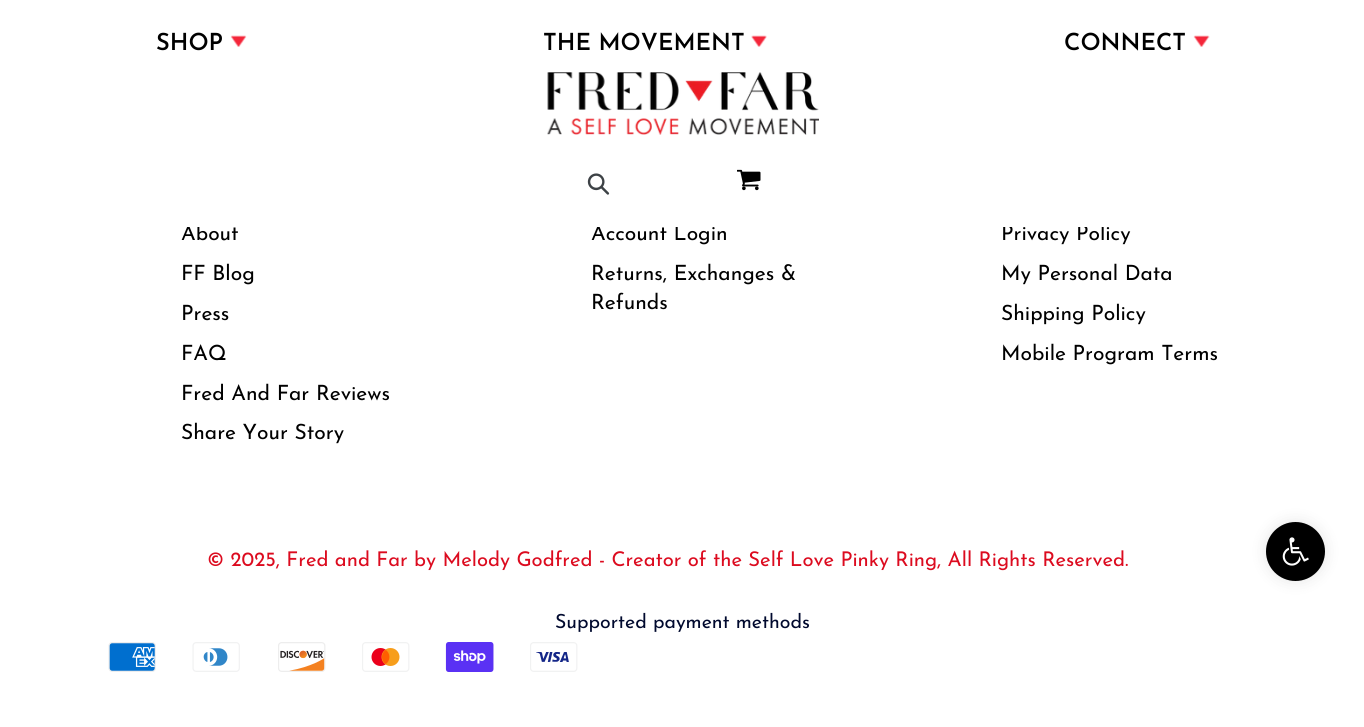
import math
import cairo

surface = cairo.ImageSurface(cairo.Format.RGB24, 1364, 727)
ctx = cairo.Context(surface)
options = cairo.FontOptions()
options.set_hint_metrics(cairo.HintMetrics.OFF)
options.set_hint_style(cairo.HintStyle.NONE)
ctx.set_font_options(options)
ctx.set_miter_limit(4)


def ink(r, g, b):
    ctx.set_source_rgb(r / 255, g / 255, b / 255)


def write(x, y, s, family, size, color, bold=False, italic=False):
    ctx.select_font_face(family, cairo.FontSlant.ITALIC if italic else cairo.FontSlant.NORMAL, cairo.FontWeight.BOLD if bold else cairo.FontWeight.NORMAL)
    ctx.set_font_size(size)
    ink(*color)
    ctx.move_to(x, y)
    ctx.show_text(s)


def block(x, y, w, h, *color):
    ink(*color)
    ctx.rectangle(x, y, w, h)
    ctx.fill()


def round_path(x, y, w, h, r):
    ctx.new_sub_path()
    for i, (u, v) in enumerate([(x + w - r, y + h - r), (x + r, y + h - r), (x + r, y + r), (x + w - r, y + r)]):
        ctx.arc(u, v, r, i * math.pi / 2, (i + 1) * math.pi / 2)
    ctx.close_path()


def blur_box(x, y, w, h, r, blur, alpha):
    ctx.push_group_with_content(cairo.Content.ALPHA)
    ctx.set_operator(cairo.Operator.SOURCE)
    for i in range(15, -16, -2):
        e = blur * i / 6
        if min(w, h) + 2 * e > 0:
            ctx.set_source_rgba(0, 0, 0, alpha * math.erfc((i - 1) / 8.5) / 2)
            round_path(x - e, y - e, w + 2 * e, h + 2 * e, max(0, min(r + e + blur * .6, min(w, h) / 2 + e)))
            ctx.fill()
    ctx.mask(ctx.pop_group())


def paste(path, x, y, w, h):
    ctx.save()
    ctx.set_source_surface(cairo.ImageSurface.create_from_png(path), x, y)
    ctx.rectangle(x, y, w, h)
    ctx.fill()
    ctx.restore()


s1 = dict(family="Josefin Sans", size=21, color=(0, 0, 0))
s2 = dict(family="Josefin Sans SemiBold", size=23.6, color=(0, 0, 0))
s3 = dict(family="Josefin Sans", size=20.25, color=(220, 11, 31))
s4 = dict(family="Josefin Sans", size=19.5, color=(0, 9, 46))

ink(255, 255, 255)
ctx.paint()
write(181, 240, "About", **s1)
write(591, 240, "Account Login", **s1)
write(1001, 240, "Privacy Policy", **s1)
block(187, 223, 917, 4, 255, 255, 255)
write(156, 50, "SHOP", **s2)
paste("pic1.png", 230, 35, 17, 12)
write(543, 50, "THE MOVEMENT", **s2)
paste("pic2.png", 751, 35, 16, 12)
write(1064, 50, "CONNECT", **s2)
paste("pic3.png", 1193, 35, 17, 12)
paste("pic4.png", 547, 72, 272, 63)
paste("pic5.png", 587, 173, 23, 22)
paste("pic6.png", 737, 169, 24, 22)
write(181, 280, "FF Blog", **s1)
write(181, 320, "Press", **s1)
write(181, 360, "FAQ", **s1)
write(181, 400, "Fred And Far Reviews", **s1)
write(181, 439, "Share Your Story", **s1)
write(591, 280, "Returns, Exchanges &", **s1)
write(591, 309, "Refunds", **s1)
write(1001, 280, "My Personal Data", **s1)
write(1001, 320, "Shipping Policy", **s1)
write(1001, 360, "Mobile Program Terms", **s1)
write(207, 566, "© 2025, Fred and Far by Melody Godfred - Creator of the Self Love Pinky Ring, All Rights Reserved.", **s3)
write(555, 628, "Supported payment methods", **s4)
paste("pic7.png", 108, 642, 48, 30)
paste("pic8.png", 192, 642, 48, 30)
paste("pic9.png", 278, 642, 48, 30)
paste("pic10.png", 362, 642, 48, 30)
paste("pic11.png", 445, 642, 49, 30)
paste("pic12.png", 530, 642, 48, 30)
ink(0, 0, 0)
blur_box(1266, 522, 59, 59, 29.5, 7.5, 0.1)
ink(0, 0, 0)
ctx.arc(1295.5, 551.5, 29.5, 0, 2 * math.pi)
ctx.fill()
paste("pic13.png", 1282, 537, 27, 29)
surface.write_to_png("screenshot.png")
